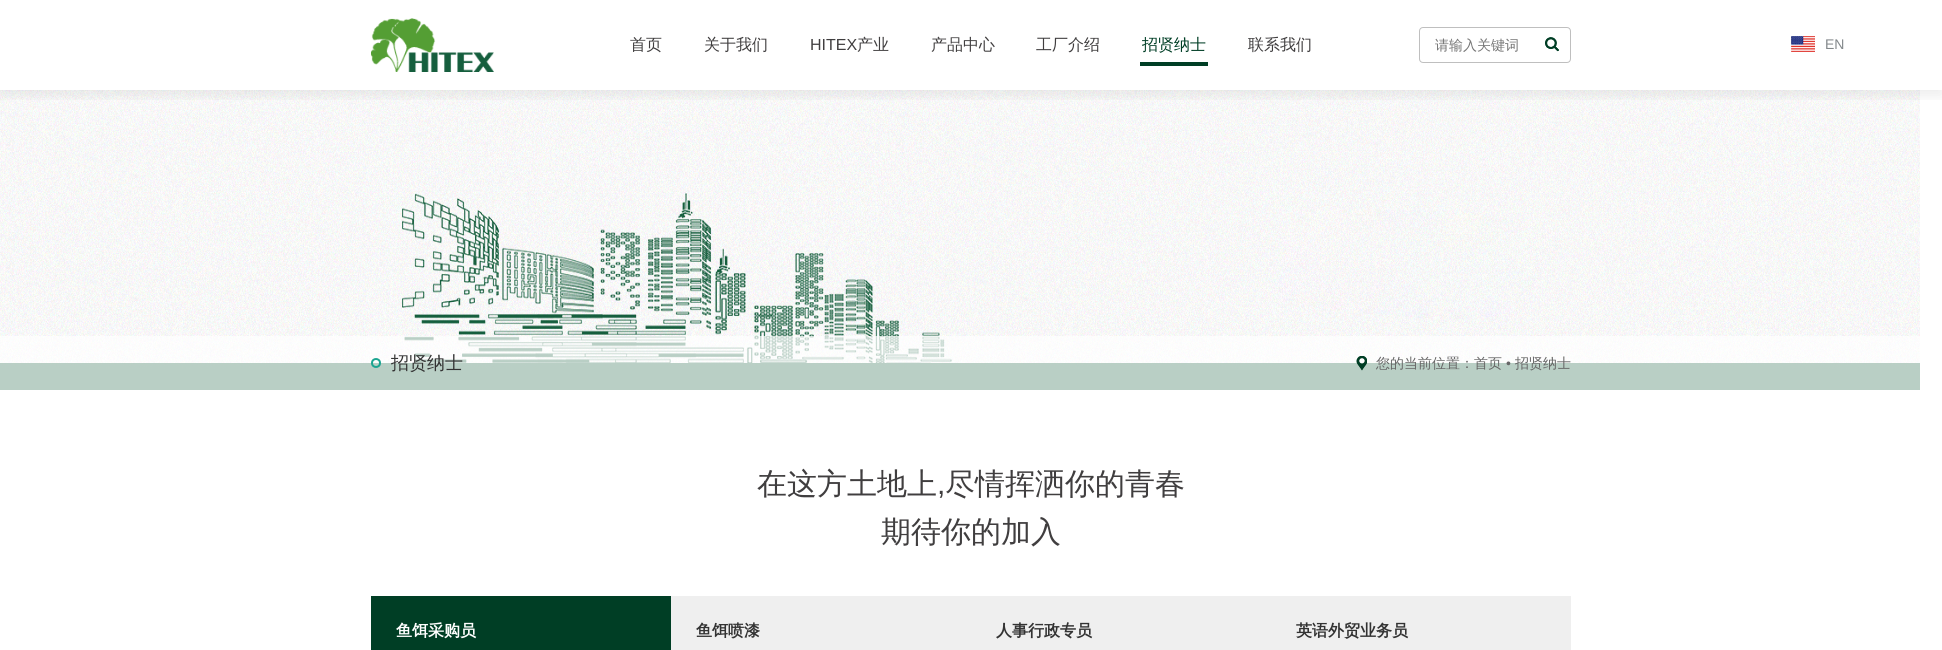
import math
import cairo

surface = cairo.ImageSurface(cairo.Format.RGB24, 1942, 650)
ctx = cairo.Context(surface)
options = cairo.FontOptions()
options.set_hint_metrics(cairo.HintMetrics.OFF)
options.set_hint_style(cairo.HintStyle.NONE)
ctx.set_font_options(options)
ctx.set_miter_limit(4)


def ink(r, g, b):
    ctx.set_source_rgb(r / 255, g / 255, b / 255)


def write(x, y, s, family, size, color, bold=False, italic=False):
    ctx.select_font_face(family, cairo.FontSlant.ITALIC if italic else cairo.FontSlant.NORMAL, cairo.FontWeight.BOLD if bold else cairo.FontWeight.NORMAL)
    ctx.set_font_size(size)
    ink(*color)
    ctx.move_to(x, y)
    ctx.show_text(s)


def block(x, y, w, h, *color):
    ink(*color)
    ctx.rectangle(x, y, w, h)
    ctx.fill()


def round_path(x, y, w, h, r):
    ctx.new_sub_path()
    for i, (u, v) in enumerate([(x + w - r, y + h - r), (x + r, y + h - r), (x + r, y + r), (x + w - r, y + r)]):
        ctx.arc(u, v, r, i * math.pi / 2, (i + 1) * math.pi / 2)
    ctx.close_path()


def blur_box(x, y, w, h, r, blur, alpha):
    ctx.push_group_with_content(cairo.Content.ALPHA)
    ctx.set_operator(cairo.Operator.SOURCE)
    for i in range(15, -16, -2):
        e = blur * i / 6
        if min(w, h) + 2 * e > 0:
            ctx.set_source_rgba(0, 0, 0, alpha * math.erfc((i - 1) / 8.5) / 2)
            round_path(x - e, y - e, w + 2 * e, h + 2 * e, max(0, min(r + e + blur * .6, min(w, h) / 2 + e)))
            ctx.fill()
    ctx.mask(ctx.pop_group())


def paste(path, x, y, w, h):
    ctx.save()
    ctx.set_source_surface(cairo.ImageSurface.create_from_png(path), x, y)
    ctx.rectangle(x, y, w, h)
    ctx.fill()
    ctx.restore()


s1 = dict(family="WenQuanYi Zen Hei Medium", size=16, color=(64, 62, 63))
s2 = dict(family="Liberation Sans", size=16, color=(64, 62, 63))
s3 = dict(family="WenQuanYi Zen Hei Medium", size=16, color=(0, 62, 37))
s4 = dict(family="WenQuanYi Zen Hei Medium", size=14, color=(117, 117, 117))
s5 = dict(family="Liberation Sans", size=14, color=(131, 136, 139))
s6 = dict(family="WenQuanYi Zen Hei Medium", size=18, color=(51, 51, 51))
s7 = dict(family="WenQuanYi Zen Hei Medium", size=14, color=(102, 102, 102))
s8 = dict(family="Liberation Sans", size=14, color=(102, 102, 102))
s9 = dict(family="WenQuanYi Zen Hei Medium", size=30, color=(64, 62, 63))
s10 = dict(family="Liberation Sans", size=30, color=(64, 62, 63))
s11 = dict(family="WenQuanYi Zen Hei", size=16, color=(255, 255, 255), bold=True)
s12 = dict(family="WenQuanYi Zen Hei", size=16, color=(51, 51, 51), bold=True)

ink(255, 255, 255)
ctx.paint()
paste("pic4.png", 0, 90, 1920, 300)
ctx.save()
ctx.rectangle(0, 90, 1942, 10)
ctx.clip()
ink(0, 0, 0)
blur_box(0, 5, 1942, 90, 0, 7.5, 0.08)
ctx.restore()
paste("pic1.png", 371, 18, 123, 54)
write(630, 50, "首页", **s1)
write(704, 50, "关于我们", **s1)
write(810, 50, "HITEX", **s2)
write(857, 50, "产业", **s1)
write(931, 50, "产品中心", **s1)
write(1036, 50, "工厂介绍", **s1)
write(1142, 50, "招贤纳士", **s3)
block(1140, 62, 68, 4, 0, 62, 37)
write(1248, 50, "联系我们", **s1)
round_path(1419.5, 27.5, 151, 35, 3.5)
ink(191, 191, 191)
ctx.set_line_width(1)
ctx.stroke()
write(1435, 50, "请输入关键词", **s4)
paste("pic2.png", 1545, 37, 14, 15)
paste("pic3.png", 1791, 36, 24, 16)
write(1825, 49, "EN", **s5)
ctx.set_source_rgba(1, 1, 1, 0.7)
ctx.rectangle(0, 336, 1920, 54)
ctx.fill()
ctx.arc(376, 363, 4, 0, 2 * math.pi)
ink(28, 165, 145)
ctx.set_line_width(2)
ctx.stroke()
write(391, 369, "招贤纳士", **s6)
paste("pic5.png", 1356, 356, 11, 15)
write(1376, 368, "您的当前位置：首页", **s7)
write(1506, 368, "•", **s8)
write(1515, 368, "招贤纳士", **s7)
write(757, 494, "在这方土地上", **s9)
write(937, 494, ",", **s10)
write(945, 494, "尽情挥洒你的青春", **s9)
write(881, 542, "期待你的加入", **s9)
block(371, 596, 300, 54, 0, 62, 37)
write(396, 636, "鱼饵采购员", **s11)
block(671, 596, 900, 54, 239, 239, 239)
write(696, 636, "鱼饵喷漆", **s12)
write(996, 636, "人事行政专员", **s12)
write(1296, 636, "英语外贸业务员", **s12)
surface.write_to_png("screenshot.png")
